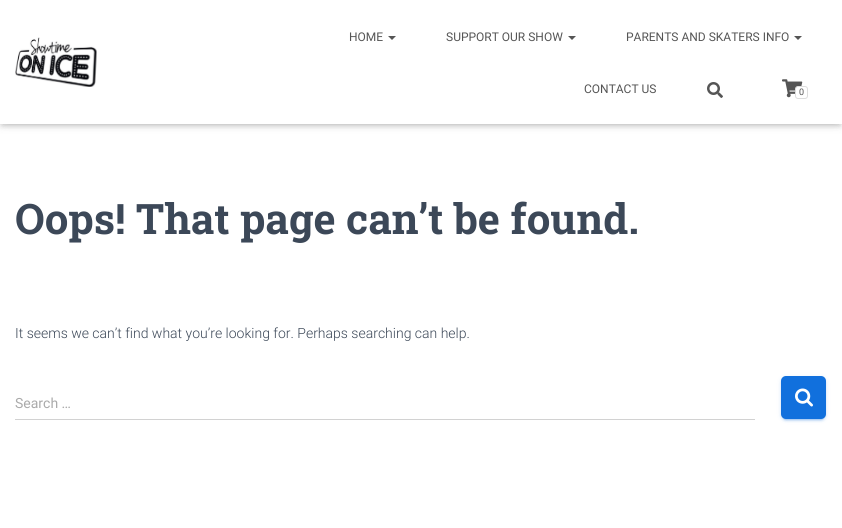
import math
import cairo

surface = cairo.ImageSurface(cairo.Format.RGB24, 842, 528)
ctx = cairo.Context(surface)
options = cairo.FontOptions()
options.set_hint_metrics(cairo.HintMetrics.OFF)
options.set_hint_style(cairo.HintStyle.NONE)
ctx.set_font_options(options)
ctx.set_miter_limit(4)


def ink(r, g, b):
    ctx.set_source_rgb(r / 255, g / 255, b / 255)


def write(x, y, s, family, size, color, bold=False, italic=False):
    ctx.select_font_face(family, cairo.FontSlant.ITALIC if italic else cairo.FontSlant.NORMAL, cairo.FontWeight.BOLD if bold else cairo.FontWeight.NORMAL)
    ctx.set_font_size(size)
    ink(*color)
    ctx.move_to(x, y)
    ctx.show_text(s)


def block(x, y, w, h, *color):
    ink(*color)
    ctx.rectangle(x, y, w, h)
    ctx.fill()


def round_path(x, y, w, h, r):
    ctx.new_sub_path()
    for i, (u, v) in enumerate([(x + w - r, y + h - r), (x + r, y + h - r), (x + r, y + r), (x + w - r, y + r)]):
        ctx.arc(u, v, r, i * math.pi / 2, (i + 1) * math.pi / 2)
    ctx.close_path()


def blur_box(x, y, w, h, r, blur, alpha):
    ctx.push_group_with_content(cairo.Content.ALPHA)
    ctx.set_operator(cairo.Operator.SOURCE)
    for i in range(15, -16, -2):
        e = blur * i / 6
        if min(w, h) + 2 * e > 0:
            ctx.set_source_rgba(0, 0, 0, alpha * math.erfc((i - 1) / 8.5) / 2)
            round_path(x - e, y - e, w + 2 * e, h + 2 * e, max(0, min(r + e + blur * .6, min(w, h) / 2 + e)))
            ctx.fill()
    ctx.mask(ctx.pop_group())


def paste(path, x, y, w, h):
    ctx.save()
    ctx.set_source_surface(cairo.ImageSurface.create_from_png(path), x, y)
    ctx.rectangle(x, y, w, h)
    ctx.fill()
    ctx.restore()


s1 = dict(family="Roboto", size=12, color=(85, 85, 85))
s2 = dict(family="Roboto", size=9, color=(85, 85, 85))
s3 = dict(family="Roboto Slab", size=42, color=(60, 72, 88), bold=True)
s4 = dict(family="Roboto Light", size=14, color=(60, 72, 88))
s5 = dict(family="Roboto", size=14, color=(170, 170, 170))

ink(255, 255, 255)
ctx.paint()
ink(0, 0, 0)
blur_box(2, 6, 838, 120, 0, 2.5, 0.1)
blur_box(0, 1, 842, 124, 0, 5, 0.12)
blur_box(6, 7, 830, 112, 0, 5, 0.42)
block(0, 0, 842, 124, 255, 255, 255)
paste("pic1.png", 15, 37, 82, 50)
write(349, 41, "HOME", **s1)
ctx.new_path()
ctx.move_to(388, 36)
ctx.line_to(396, 36)
ctx.line_to(392, 40)
ctx.close_path()
ctx.fill()
write(446, 41, "SUPPORT OUR SHOW", **s1)
ctx.new_path()
ctx.move_to(568, 36)
ctx.line_to(576, 36)
ctx.line_to(572, 40)
ctx.close_path()
ctx.fill()
write(626, 41, "PARENTS AND SKATERS INFO", **s1)
ctx.new_path()
ctx.move_to(794, 36)
ctx.line_to(802, 36)
ctx.line_to(798, 40)
ctx.close_path()
ctx.fill()
write(584, 93, "CONTACT US", **s1)
paste("pic2.png", 707, 82, 16, 16)
paste("pic3.png", 782, 79, 21, 19)
ink(255, 255, 255)
round_path(795.5, 86.5, 12, 12, 2.5)
ctx.fill_preserve()
ink(221, 221, 221)
ctx.set_line_width(1)
ctx.stroke()
write(799, 95, "0", **s2)
write(15, 234, "Oops! That page can’t be found.", **s3)
write(15, 338, "It seems we can’t find what you’re looking for. Perhaps searching can help.", **s4)
write(15, 408, "Search …", **s5)
block(15, 419, 740, 1, 210, 210, 210)
ink(17, 112, 221)
blur_box(781, 377, 45, 43, 5, 2.5, 0.12)
blur_box(783, 381, 41, 39, 3, 0.5, 0.2)
blur_box(781, 378, 45, 43, 5, 1, 0.14)
ink(17, 112, 221)
round_path(781, 376, 45, 43, 5)
ctx.fill()
paste("pic4.png", 795, 388, 18, 19)
surface.write_to_png("screenshot.png")
